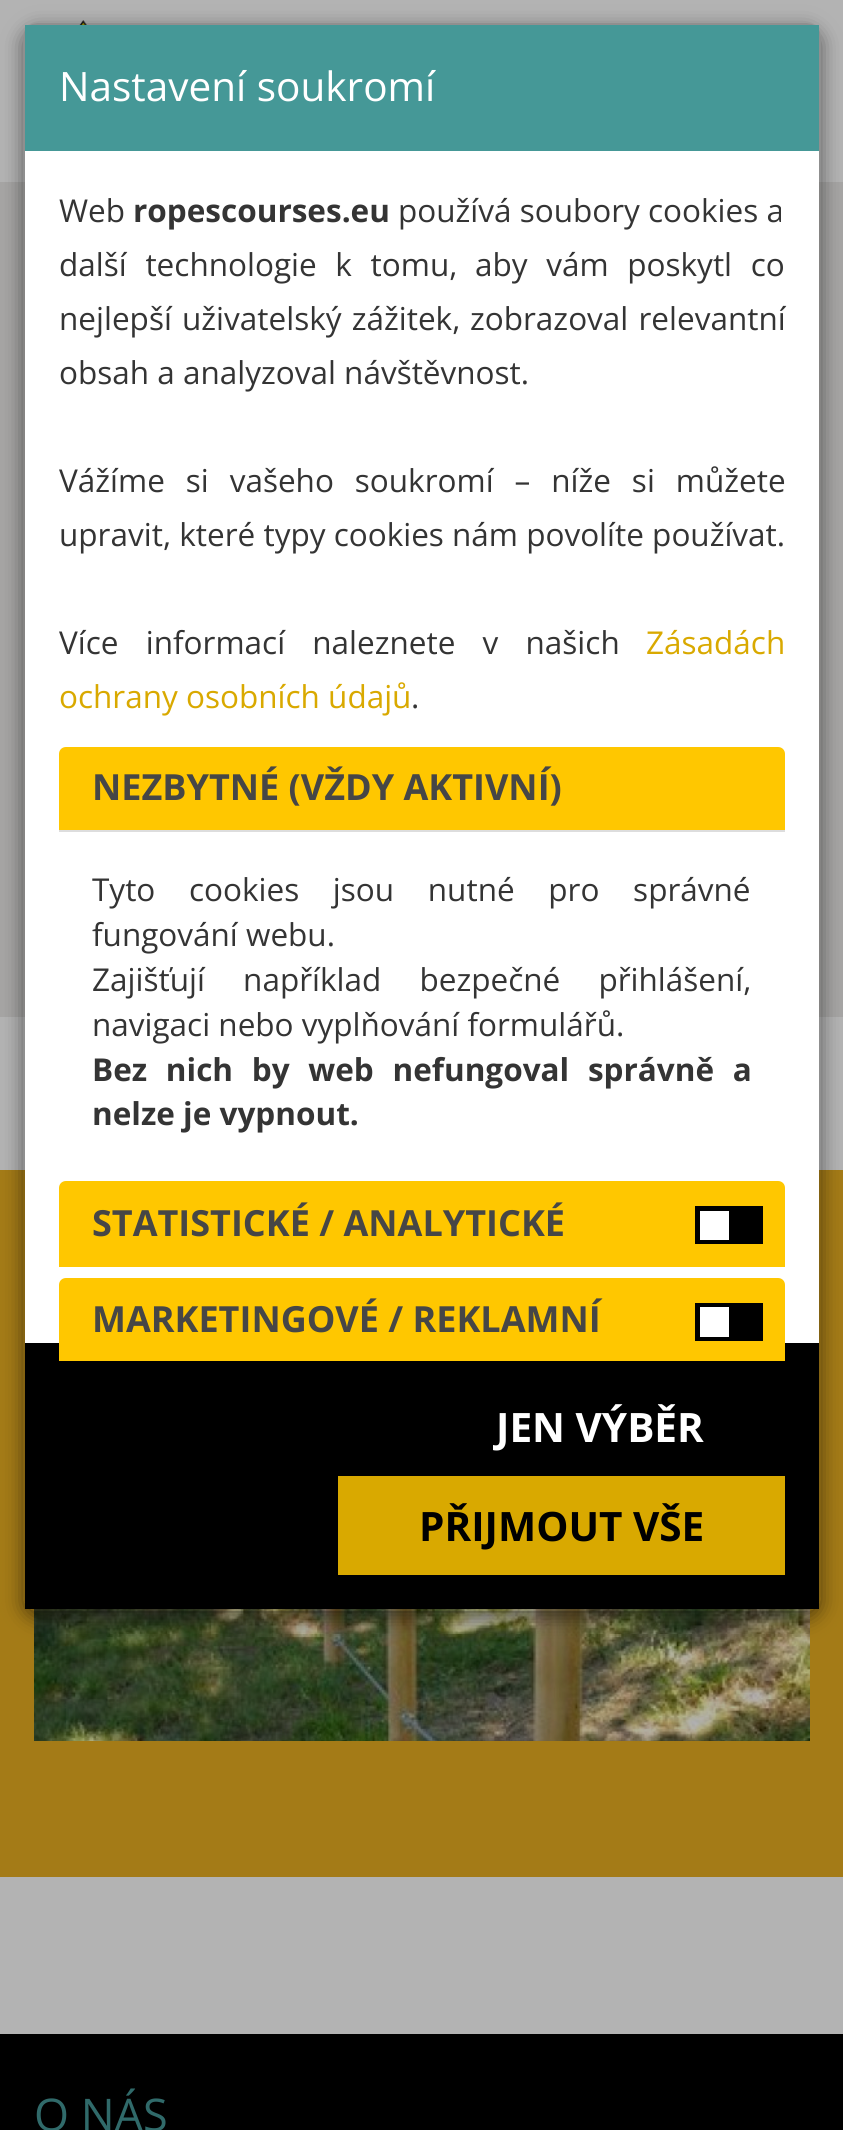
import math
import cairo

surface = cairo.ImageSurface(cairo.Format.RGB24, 843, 2130)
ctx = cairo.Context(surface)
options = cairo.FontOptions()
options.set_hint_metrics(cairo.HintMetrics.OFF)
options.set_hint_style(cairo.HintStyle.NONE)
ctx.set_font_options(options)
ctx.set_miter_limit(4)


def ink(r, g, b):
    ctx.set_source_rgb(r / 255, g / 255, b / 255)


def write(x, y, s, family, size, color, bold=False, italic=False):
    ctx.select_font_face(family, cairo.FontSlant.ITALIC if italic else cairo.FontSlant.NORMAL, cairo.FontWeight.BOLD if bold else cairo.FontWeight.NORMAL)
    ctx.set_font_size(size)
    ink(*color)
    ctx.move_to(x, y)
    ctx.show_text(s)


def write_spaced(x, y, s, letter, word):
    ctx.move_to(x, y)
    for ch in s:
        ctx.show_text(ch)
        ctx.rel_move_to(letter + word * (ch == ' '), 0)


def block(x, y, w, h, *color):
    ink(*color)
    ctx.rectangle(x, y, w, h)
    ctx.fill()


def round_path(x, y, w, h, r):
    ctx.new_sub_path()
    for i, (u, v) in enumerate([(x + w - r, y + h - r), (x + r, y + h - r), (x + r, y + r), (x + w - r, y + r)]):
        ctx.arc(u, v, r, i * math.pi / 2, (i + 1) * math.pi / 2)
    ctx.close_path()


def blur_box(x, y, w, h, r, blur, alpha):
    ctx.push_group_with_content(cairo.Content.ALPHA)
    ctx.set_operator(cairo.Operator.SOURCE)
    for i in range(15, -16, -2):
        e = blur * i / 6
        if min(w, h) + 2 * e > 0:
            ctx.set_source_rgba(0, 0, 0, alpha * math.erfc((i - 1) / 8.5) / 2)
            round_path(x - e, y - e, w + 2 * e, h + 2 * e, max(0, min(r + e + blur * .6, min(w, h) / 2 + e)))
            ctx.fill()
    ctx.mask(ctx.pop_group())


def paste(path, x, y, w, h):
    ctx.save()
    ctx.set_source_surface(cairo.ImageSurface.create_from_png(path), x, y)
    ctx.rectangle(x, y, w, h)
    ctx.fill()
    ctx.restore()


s1 = dict(family="Open Sans", size=40.5, color=(255, 255, 255))
s2 = dict(family="Open Sans", size=31.5, color=(52, 52, 52))
s3 = dict(family="Open Sans", size=31.5, color=(52, 52, 52), bold=True)
s4 = dict(family="Open Sans", size=31.5, color=(217, 169, 0))
s5 = dict(family="Open Sans", size=36, color=(70, 70, 70), bold=True)
s6 = dict(family="Open Sans", size=40.5, color=(255, 255, 255), bold=True)
s7 = dict(family="Open Sans", size=40.5, color=(0, 0, 0), bold=True)
s8 = dict(family="Open Sans", size=45, color=(48, 106, 106))

ink(179, 179, 179)
ctx.paint()
paste("pic1.png", 79, 20, 8, 5)
block(0, 182, 843, 835, 166, 165, 164)
block(0, 1170, 843, 707, 164, 123, 23)
paste("pic2.png", 34, 1609, 776, 132)
ctx.save()
ctx.set_fill_rule(cairo.FillRule.EVEN_ODD)
ctx.new_path()
ctx.move_to(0, 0)
ctx.line_to(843, 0)
ctx.line_to(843, 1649)
ctx.line_to(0, 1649)
ctx.close_path()
ctx.move_to(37, 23)
ctx.line_to(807, 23)
ctx.curve_to(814.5, 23, 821, 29.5, 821, 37)
ctx.line_to(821, 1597)
ctx.curve_to(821, 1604.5, 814.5, 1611, 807, 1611)
ctx.line_to(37, 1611)
ctx.curve_to(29.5, 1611, 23, 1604.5, 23, 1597)
ctx.line_to(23, 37)
ctx.curve_to(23, 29.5, 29.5, 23, 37, 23)
ctx.close_path()
ctx.clip()
ink(0, 0, 0)
blur_box(23, 29, 798, 1589, 14, 10, 0.5)
ctx.restore()
block(25, 151, 794, 1192, 255, 255, 255)
round_path(24, 24, 796, 1586, 13)
ctx.set_source_rgba(0, 0, 0, 0.2)
ctx.stroke()
block(25, 25, 794, 126, 69, 152, 151)
write(59, 101, "Nastavení soukromí", **s1)
write(59, 222, "Web", **s2)
write(133, 222, "ropescourses.eu", **s3)
write(398, 222, "používá soubory cookies a", **s2)
write_spaced(59, 276, "další technologie k tomu,", 0, 10.5)
write_spaced(475, 276, "aby vám poskytl co", 0, 10.5)
write_spaced(59, 330, "nejlepší uživatelský zážitek,", 0, 2)
write_spaced(470, 330, "zobrazoval relevantní", 0, 2)
write(59, 384, "obsah a analyzoval návštěvnost.", **s2)
write_spaced(59, 492, "Vážíme si vašeho soukromí – níže si můžete", 0, 12.75)
write(59, 546, "upravit, které typy cookies nám povolíte používat.", **s2)
write_spaced(59, 654, "Více informací naleznete v našich", 0, 19)
write(646, 654, "Zásadách", **s4)
write(59, 708, "ochrany osobních údajů", **s4)
write(411, 708, ".", **s2)
ink(255, 199, 0)
ctx.new_path()
ctx.move_to(66, 747)
ctx.line_to(778, 747)
ctx.curve_to(782, 747, 785, 750, 785, 754)
ctx.line_to(785, 830)
ctx.line_to(59, 830)
ctx.line_to(59, 754)
ctx.curve_to(59, 750, 62, 747, 66, 747)
ctx.close_path()
ctx.fill()
write(92, 800, "NEZBYTNÉ (VŽDY AKTIVNÍ)", **s5)
block(59, 830, 726, 2, 221, 221, 221)
ctx.select_font_face("Open Sans")
ctx.set_font_size(31.5)
ink(52, 52, 52)
write_spaced(92, 901, "Tyto cookies jsou nutné pro správné", 0, 25.5)
write(92, 946, "fungování webu.", **s2)
write_spaced(92, 991, "Zajišťují například bezpečné přihlášení,", 0, 30)
write(92, 1036, "navigaci nebo vyplňování formulářů.", **s2)
ctx.select_font_face("Open Sans", cairo.FontSlant.NORMAL, cairo.FontWeight.BOLD)
write_spaced(92, 1081, "Bez nich by web nefungoval správně a", 0, 10.5)
write(92, 1125, "nelze je vypnout.", **s3)
ink(255, 199, 0)
ctx.new_path()
ctx.move_to(66, 1181)
ctx.line_to(778, 1181)
ctx.curve_to(782, 1181, 785, 1184, 785, 1188)
ctx.line_to(785, 1267)
ctx.line_to(59, 1267)
ctx.line_to(59, 1188)
ctx.curve_to(59, 1184, 62, 1181, 66, 1181)
ctx.close_path()
ctx.fill()
write(92, 1236, "STATISTICKÉ / ANALYTICKÉ", **s5)
block(695, 1206, 68, 38, 0, 0, 0)
block(700, 1211, 29, 29, 255, 255, 255)
block(25, 1343, 794, 266, 0, 0, 0)
ink(255, 199, 0)
ctx.new_path()
ctx.move_to(66, 1278)
ctx.line_to(778, 1278)
ctx.curve_to(782, 1278, 785, 1281, 785, 1285)
ctx.line_to(785, 1361)
ctx.line_to(59, 1361)
ctx.line_to(59, 1285)
ctx.curve_to(59, 1281, 62, 1278, 66, 1278)
ctx.close_path()
ctx.fill()
write(92, 1332, "MARKETINGOVÉ / REKLAMNÍ", **s5)
block(695, 1303, 68, 38, 0, 0, 0)
block(700, 1307, 29, 30, 255, 255, 255)
write(496, 1442, "JEN VÝBĚR", **s6)
block(338, 1476, 447, 99, 217, 169, 0)
write(419, 1541, "PŘIJMOUT VŠE", **s7)
block(0, 2034, 843, 96, 0, 0, 0)
write(34, 2131, "O NÁS", **s8)
surface.write_to_png("screenshot.png")
